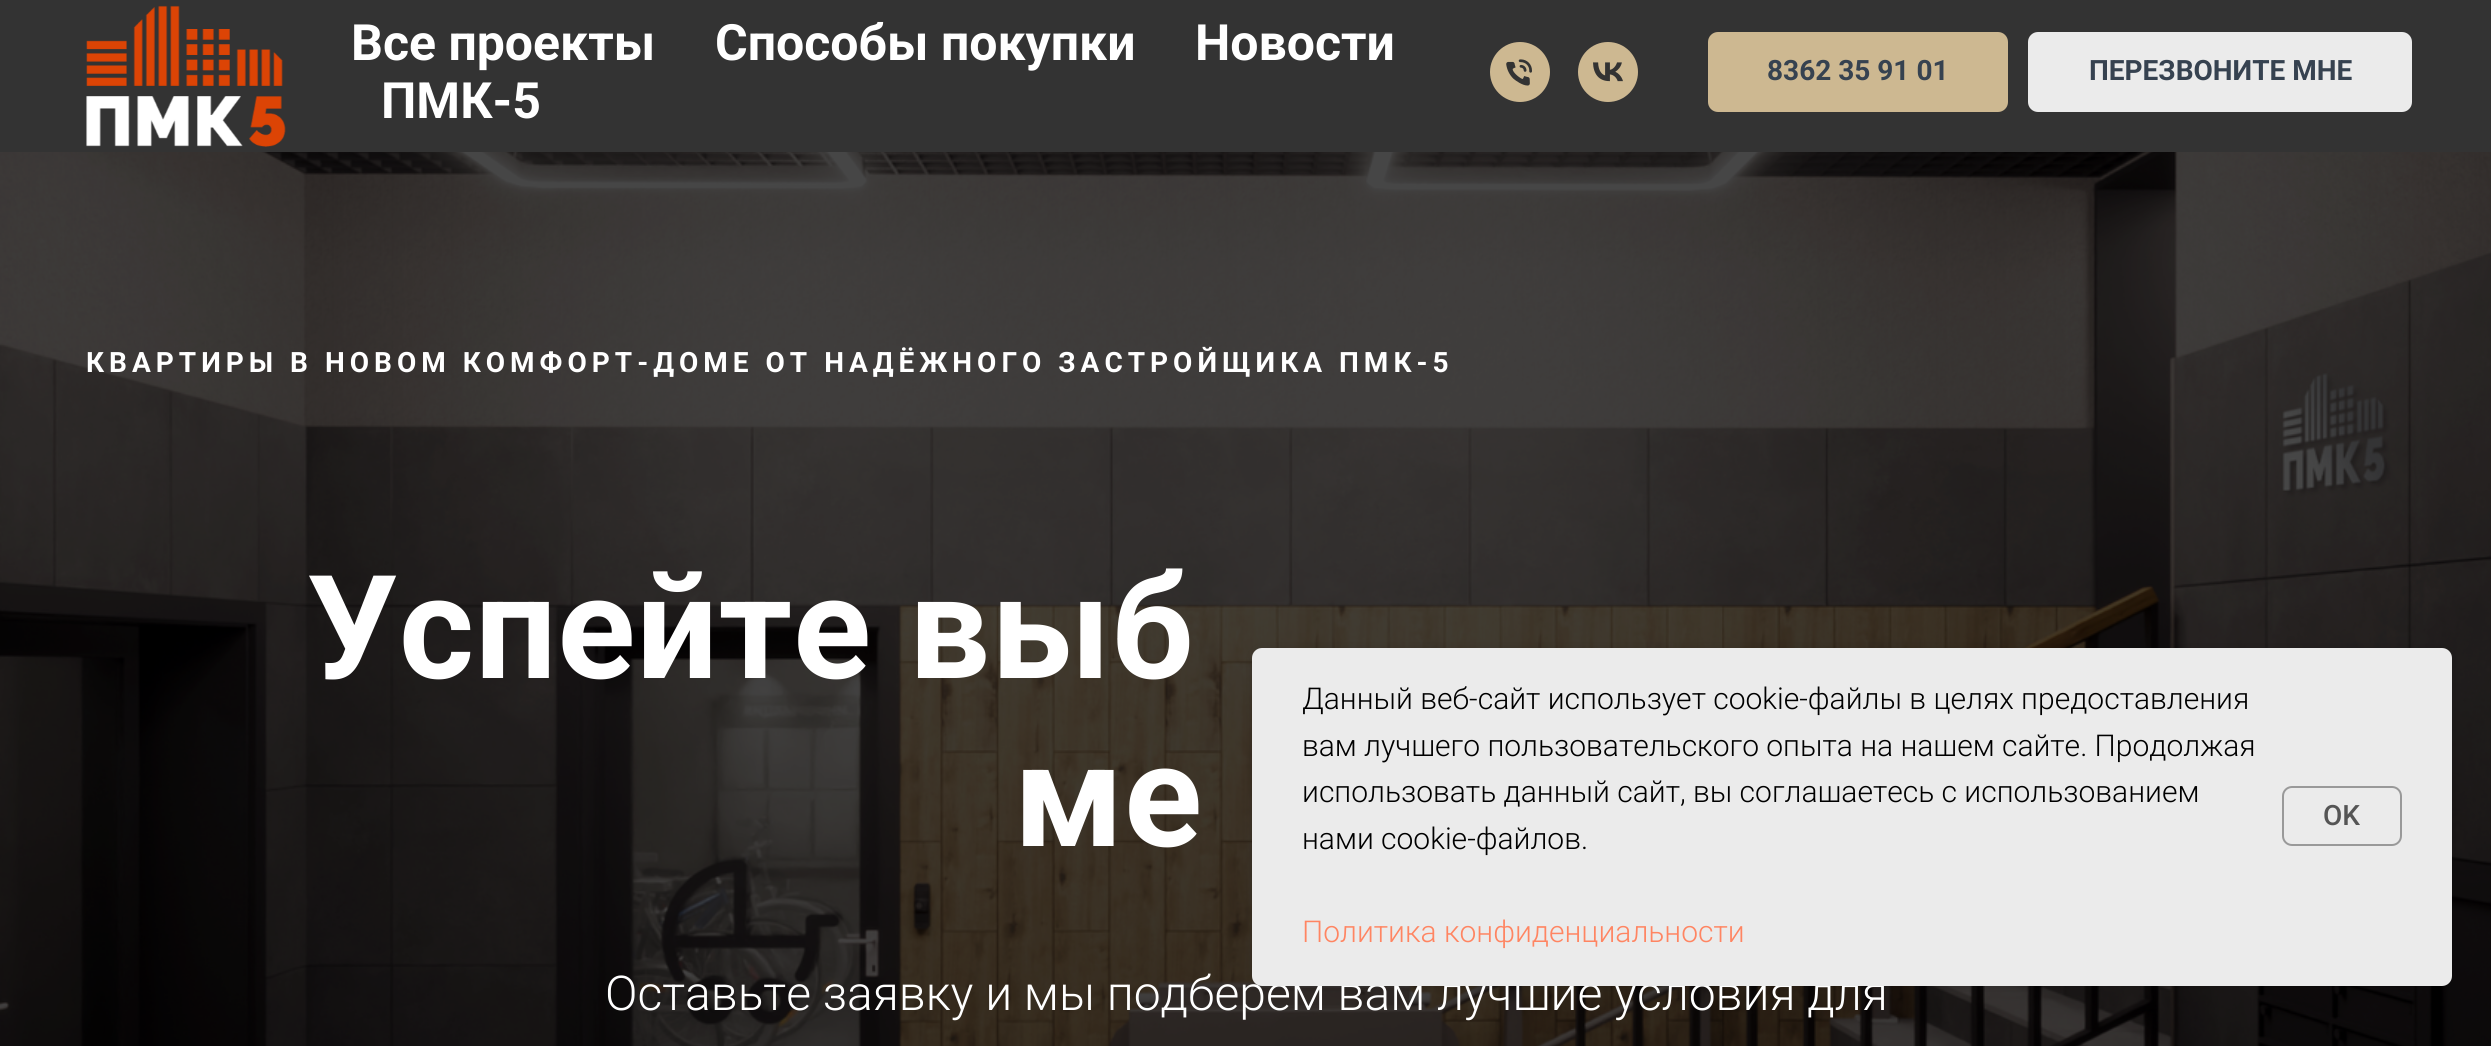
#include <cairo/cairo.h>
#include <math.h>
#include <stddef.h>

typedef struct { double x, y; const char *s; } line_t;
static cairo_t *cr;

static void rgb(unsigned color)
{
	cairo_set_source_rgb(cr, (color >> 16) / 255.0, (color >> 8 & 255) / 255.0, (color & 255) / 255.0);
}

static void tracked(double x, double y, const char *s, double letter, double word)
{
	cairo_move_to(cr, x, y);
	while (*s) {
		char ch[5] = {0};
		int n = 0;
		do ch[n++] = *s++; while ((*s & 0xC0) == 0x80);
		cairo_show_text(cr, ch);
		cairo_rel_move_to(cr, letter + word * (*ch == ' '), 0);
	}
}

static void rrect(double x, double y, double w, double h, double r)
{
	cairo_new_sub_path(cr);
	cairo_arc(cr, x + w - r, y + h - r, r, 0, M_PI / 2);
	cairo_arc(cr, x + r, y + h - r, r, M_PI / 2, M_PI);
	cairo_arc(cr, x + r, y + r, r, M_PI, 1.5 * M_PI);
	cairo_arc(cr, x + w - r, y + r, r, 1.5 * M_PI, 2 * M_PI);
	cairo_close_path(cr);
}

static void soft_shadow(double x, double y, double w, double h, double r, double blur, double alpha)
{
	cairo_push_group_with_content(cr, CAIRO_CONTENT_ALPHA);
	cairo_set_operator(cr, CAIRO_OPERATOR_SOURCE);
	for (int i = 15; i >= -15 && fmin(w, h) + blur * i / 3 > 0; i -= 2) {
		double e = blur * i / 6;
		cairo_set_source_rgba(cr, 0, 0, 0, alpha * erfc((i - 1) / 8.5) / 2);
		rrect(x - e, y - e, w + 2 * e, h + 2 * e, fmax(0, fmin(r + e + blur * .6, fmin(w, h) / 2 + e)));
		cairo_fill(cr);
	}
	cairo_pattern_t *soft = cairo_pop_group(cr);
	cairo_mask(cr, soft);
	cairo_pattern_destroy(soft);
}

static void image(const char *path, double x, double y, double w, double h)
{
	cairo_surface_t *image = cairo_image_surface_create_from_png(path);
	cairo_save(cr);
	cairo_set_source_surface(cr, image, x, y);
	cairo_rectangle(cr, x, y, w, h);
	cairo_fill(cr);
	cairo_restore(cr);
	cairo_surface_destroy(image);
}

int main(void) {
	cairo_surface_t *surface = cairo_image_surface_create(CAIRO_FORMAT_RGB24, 2491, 1046);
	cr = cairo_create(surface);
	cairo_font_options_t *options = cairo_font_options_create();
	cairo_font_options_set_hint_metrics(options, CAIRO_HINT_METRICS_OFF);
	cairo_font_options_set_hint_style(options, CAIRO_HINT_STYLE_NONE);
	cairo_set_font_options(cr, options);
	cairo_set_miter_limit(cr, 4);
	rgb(0xffffff);
	cairo_paint(cr);
	rgb(0x333333);
	cairo_rectangle(cr, 0, 0, 2491, 152);
	cairo_fill(cr);
	image("img/1.png", 86, 5, 200, 142);
	image("img/2.png", 1490, 42, 60, 60);
	image("img/3.png", 1578, 42, 60, 60);
	rgb(0xcdb891);
	rrect(1708, 32, 300, 80, 10);
	cairo_fill(cr);
	rgb(0xebebeb);
	rrect(2028, 32, 384, 80, 10);
	cairo_fill(cr);
	image("img/4.png", 0, 152, 2491, 894);
	rgb(0x000000);
	soft_shadow(1252, 648, 1200, 338, 10, 5, 0.1);
	cairo_select_font_face(cr, "Roboto", CAIRO_FONT_SLANT_NORMAL, CAIRO_FONT_WEIGHT_BOLD);
	cairo_set_font_size(cr, 50);
	rgb(0xffffff);
	{
		static const line_t items[] = {
			{351, 60, "Все проекты"},
			{715, 60, "Способы покупки"},
			{1195, 60, "Новости"},
			{381, 118, "ПМК-5"},
		};
		for (size_t i = 0; i < sizeof items / sizeof *items; i++) {
			cairo_move_to(cr, items[i].x, items[i].y);
			cairo_show_text(cr, items[i].s);
		}
	}
	cairo_set_font_size(cr, 28);
	rgb(0x364250);
	cairo_move_to(cr, 1767, 80);
	cairo_show_text(cr, "8362 35 91 01");
	cairo_move_to(cr, 2089, 80);
	cairo_show_text(cr, "ПЕРЕЗВОНИТЕ МНЕ");
	rgb(0xffffff);
	tracked(86, 372, "КВАРТИРЫ В НОВОМ КОМФОРТ-ДОМЕ ОТ НАДЁЖНОГО ЗАСТРОЙЩИКА ПМК-5", 5, 0);
	cairo_set_font_size(cr, 144);
	tracked(307, 678, "Успейте выб", 1, 0);
	tracked(1014, 846, "ме", 1, 0);
	cairo_select_font_face(cr, "Roboto Light", CAIRO_FONT_SLANT_NORMAL, CAIRO_FONT_WEIGHT_NORMAL);
	cairo_set_font_size(cr, 48);
	cairo_move_to(cr, 605, 1010);
	cairo_show_text(cr, "Оставьте заявку и мы подберем вам лучшие условия для");
	rgb(0xebebeb);
	rrect(1252, 648, 1200, 338, 10);
	cairo_fill(cr);
	cairo_set_font_size(cr, 30);
	rgb(0x000000);
	{
		static const line_t items[] = {
			{1302, 709, "Данный веб-сайт использует cookie-файлы в целях предоставления"},
			{1302, 756, "вам лучшего пользовательского опыта на нашем сайте. Продолжая"},
			{1302, 802, "использовать данный сайт, вы соглашаетесь с использованием"},
			{1302, 849, "нами cookie-файлов."},
		};
		for (size_t i = 0; i < sizeof items / sizeof *items; i++) {
			cairo_move_to(cr, items[i].x, items[i].y);
			cairo_show_text(cr, items[i].s);
		}
	}
	rgb(0xff8562);
	cairo_move_to(cr, 1302, 942);
	cairo_show_text(cr, "Политика конфиденциальности");
	rrect(2283, 787, 118, 58, 9);
	rgb(0x999999);
	cairo_stroke(cr);
	cairo_select_font_face(cr, "Roboto Medium", CAIRO_FONT_SLANT_NORMAL, CAIRO_FONT_WEIGHT_NORMAL);
	cairo_set_font_size(cr, 28);
	rgb(0x555555);
	cairo_move_to(cr, 2323, 825);
	cairo_show_text(cr, "OK");
	cairo_surface_write_to_png(surface, "page.png");
	cairo_font_options_destroy(options);
	cairo_destroy(cr);
	cairo_surface_destroy(surface);
	return 0;
}
